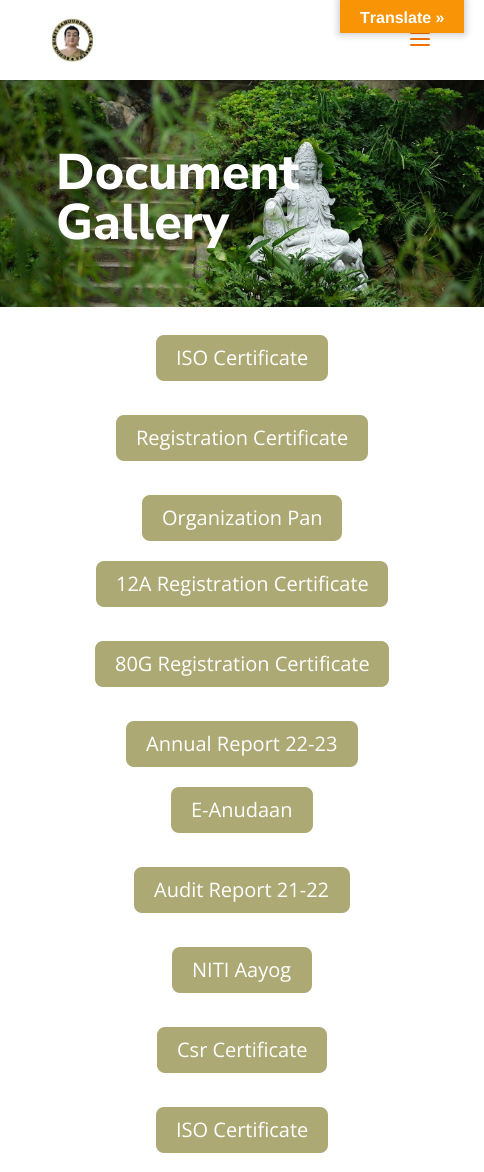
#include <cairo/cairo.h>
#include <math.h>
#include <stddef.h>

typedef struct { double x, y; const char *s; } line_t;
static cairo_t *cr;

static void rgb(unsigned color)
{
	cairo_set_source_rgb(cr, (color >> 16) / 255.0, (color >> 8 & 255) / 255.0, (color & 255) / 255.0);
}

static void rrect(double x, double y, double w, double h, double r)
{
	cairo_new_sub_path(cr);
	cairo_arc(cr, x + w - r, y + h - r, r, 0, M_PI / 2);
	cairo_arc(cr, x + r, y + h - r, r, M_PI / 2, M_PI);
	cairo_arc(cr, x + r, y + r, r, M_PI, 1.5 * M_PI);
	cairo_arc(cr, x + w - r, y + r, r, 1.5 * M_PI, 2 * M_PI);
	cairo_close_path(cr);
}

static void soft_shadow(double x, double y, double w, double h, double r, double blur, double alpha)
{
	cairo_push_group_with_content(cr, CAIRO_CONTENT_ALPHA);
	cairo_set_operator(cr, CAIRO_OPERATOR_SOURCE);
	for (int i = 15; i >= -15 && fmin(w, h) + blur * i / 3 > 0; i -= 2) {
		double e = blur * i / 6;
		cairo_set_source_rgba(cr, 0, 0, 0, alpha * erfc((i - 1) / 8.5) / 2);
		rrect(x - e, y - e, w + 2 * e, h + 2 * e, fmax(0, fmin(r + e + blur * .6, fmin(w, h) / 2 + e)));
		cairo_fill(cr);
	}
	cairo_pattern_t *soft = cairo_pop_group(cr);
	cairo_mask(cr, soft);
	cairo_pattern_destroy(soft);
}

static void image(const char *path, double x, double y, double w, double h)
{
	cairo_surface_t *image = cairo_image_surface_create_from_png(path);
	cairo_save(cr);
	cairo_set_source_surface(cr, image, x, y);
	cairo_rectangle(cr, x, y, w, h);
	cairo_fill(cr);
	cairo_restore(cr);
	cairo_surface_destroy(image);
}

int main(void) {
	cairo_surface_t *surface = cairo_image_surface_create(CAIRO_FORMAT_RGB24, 484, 1172);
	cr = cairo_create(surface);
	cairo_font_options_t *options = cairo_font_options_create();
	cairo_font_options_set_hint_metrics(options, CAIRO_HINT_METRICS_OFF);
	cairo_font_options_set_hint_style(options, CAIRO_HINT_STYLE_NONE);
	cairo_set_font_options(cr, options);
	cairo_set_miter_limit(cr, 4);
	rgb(0xffffff);
	cairo_paint(cr);
	image("img/2.png", 410, 33, 20, 13);
	rgb(0x000000);
	soft_shadow(340, 0, 124, 33, 0, 4.5, 0.3);
	rgb(0xf89406);
	cairo_rectangle(cr, 340, 0, 124, 33);
	cairo_fill(cr);
	image("img/3.png", 0, 80, 484, 227);
	cairo_set_source_rgba(cr, 0, 0, 0, 0.1);
	cairo_rectangle(cr, 0, 80, 423, 1);
	cairo_fill(cr);
	image("img/1.png", 52, 18, 41, 44);
	rgb(0xaca974);
	rrect(155, 334, 174, 48, 9);
	cairo_fill_preserve(cr);
	rgb(0xffffff);
	cairo_stroke(cr);
	rgb(0xaca974);
	rrect(115, 414, 254, 48, 9);
	cairo_fill_preserve(cr);
	rgb(0xffffff);
	cairo_stroke(cr);
	rgb(0xaca974);
	rrect(141, 494, 202, 48, 9);
	cairo_fill_preserve(cr);
	rgb(0xffffff);
	cairo_stroke(cr);
	rgb(0xaca974);
	rrect(95, 560, 294, 48, 9);
	cairo_fill_preserve(cr);
	rgb(0xffffff);
	cairo_stroke(cr);
	rgb(0xaca974);
	rrect(94, 640, 296, 48, 9);
	cairo_fill_preserve(cr);
	rgb(0xffffff);
	cairo_stroke(cr);
	rgb(0xaca974);
	rrect(125, 720, 234, 48, 9);
	cairo_fill_preserve(cr);
	rgb(0xffffff);
	cairo_stroke(cr);
	rgb(0xaca974);
	rrect(170, 786, 144, 48, 9);
	cairo_fill_preserve(cr);
	rgb(0xffffff);
	cairo_stroke(cr);
	rgb(0xaca974);
	rrect(133, 866, 218, 48, 9);
	cairo_fill_preserve(cr);
	rgb(0xffffff);
	cairo_stroke(cr);
	rgb(0xaca974);
	rrect(171, 946, 142, 48, 9);
	cairo_fill_preserve(cr);
	rgb(0xffffff);
	cairo_stroke(cr);
	rgb(0xaca974);
	rrect(156, 1026, 172, 48, 9);
	cairo_fill_preserve(cr);
	rgb(0xffffff);
	cairo_stroke(cr);
	rgb(0xaca974);
	rrect(155, 1106, 174, 48, 9);
	cairo_fill_preserve(cr);
	rgb(0xffffff);
	cairo_stroke(cr);
	cairo_select_font_face(cr, "Liberation Sans", CAIRO_FONT_SLANT_NORMAL, CAIRO_FONT_WEIGHT_BOLD);
	cairo_set_font_size(cr, 16);
	cairo_move_to(cr, 360, 23);
	cairo_show_text(cr, "Translate »");
	cairo_select_font_face(cr, "Nunito Sans ExtraBold", CAIRO_FONT_SLANT_NORMAL, CAIRO_FONT_WEIGHT_NORMAL);
	cairo_set_font_size(cr, 50);
	cairo_move_to(cr, 56, 189);
	cairo_show_text(cr, "Document");
	cairo_move_to(cr, 56, 239);
	cairo_show_text(cr, "Gallery");
	cairo_select_font_face(cr, "Open Sans", CAIRO_FONT_SLANT_NORMAL, CAIRO_FONT_WEIGHT_NORMAL);
	cairo_set_font_size(cr, 20);
	{
		static const line_t items[] = {
			{176, 365, "ISO Certificate"},
			{136, 445, "Registration Certificate"},
			{162, 525, "Organization Pan"},
			{116, 591, "12A Registration Certificate"},
			{115, 671, "80G Registration Certificate"},
			{146, 751, "Annual Report 22-23"},
			{191, 817, "E-Anudaan"},
			{154, 897, "Audit Report 21-22"},
			{192, 977, "NITI Aayog"},
			{177, 1057, "Csr Certificate"},
			{176, 1137, "ISO Certificate"},
		};
		for (size_t i = 0; i < sizeof items / sizeof *items; i++) {
			cairo_move_to(cr, items[i].x, items[i].y);
			cairo_show_text(cr, items[i].s);
		}
	}
	cairo_surface_write_to_png(surface, "page.png");
	cairo_font_options_destroy(options);
	cairo_destroy(cr);
	cairo_surface_destroy(surface);
	return 0;
}
